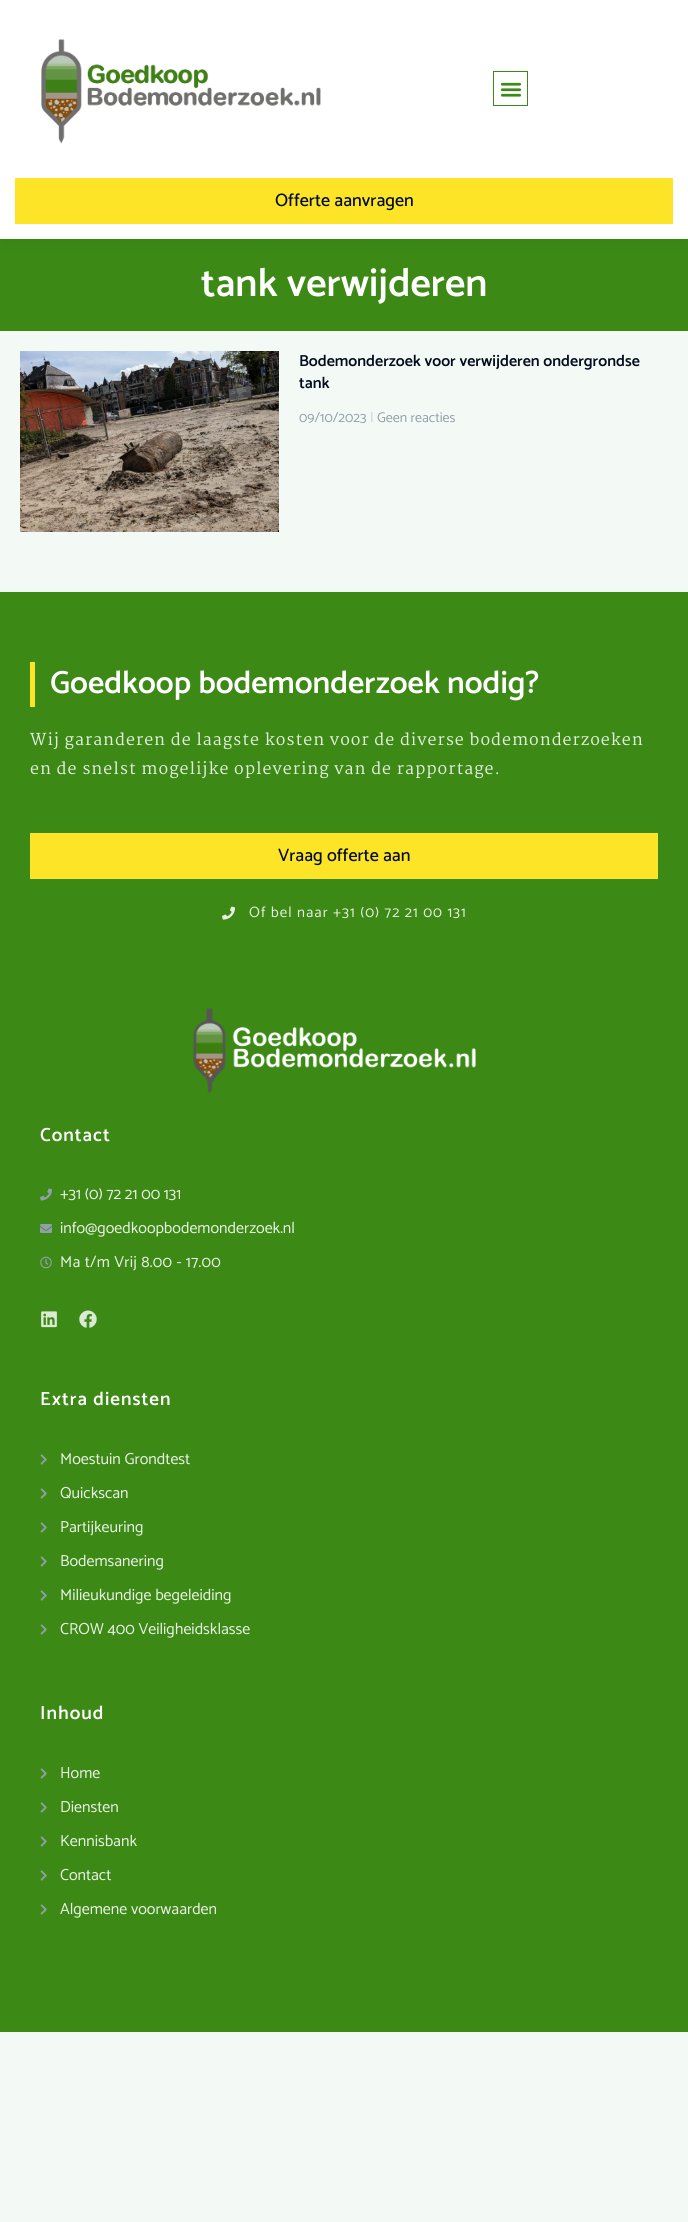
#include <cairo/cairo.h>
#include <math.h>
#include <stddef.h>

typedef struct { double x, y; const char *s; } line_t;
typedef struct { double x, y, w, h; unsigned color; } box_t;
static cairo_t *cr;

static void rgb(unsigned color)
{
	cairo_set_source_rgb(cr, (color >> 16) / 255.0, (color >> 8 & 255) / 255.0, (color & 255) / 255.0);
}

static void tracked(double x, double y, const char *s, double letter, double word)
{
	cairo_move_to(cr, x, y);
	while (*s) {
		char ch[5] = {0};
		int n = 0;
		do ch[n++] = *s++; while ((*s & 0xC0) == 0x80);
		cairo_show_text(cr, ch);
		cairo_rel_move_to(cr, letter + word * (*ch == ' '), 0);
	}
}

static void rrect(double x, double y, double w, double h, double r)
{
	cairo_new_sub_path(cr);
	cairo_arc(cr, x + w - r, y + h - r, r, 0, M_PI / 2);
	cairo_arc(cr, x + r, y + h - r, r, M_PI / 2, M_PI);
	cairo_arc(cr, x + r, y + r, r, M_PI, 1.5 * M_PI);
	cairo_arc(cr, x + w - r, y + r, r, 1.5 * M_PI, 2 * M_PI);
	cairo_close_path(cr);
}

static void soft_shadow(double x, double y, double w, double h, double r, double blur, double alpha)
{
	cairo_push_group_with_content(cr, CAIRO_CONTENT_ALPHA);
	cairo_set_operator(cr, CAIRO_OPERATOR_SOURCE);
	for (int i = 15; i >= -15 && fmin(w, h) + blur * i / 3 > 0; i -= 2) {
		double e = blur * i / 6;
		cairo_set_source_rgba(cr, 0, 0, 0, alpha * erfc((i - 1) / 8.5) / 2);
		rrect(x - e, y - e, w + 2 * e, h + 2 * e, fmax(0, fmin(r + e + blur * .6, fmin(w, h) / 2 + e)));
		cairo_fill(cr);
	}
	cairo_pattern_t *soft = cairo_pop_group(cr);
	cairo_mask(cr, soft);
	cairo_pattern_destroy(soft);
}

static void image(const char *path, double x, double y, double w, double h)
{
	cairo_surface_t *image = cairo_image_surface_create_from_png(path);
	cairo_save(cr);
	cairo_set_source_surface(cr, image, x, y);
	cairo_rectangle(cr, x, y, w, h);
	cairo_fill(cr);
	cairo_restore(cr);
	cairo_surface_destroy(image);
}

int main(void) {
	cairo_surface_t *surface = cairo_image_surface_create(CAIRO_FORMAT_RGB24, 688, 2222);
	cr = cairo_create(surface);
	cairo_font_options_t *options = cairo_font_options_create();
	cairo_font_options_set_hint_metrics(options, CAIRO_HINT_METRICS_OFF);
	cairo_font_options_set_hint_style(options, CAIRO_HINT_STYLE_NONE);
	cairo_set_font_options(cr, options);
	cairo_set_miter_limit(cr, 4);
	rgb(0xf3f9f4);
	cairo_paint(cr);
	rgb(0x3c8a15);
	cairo_rectangle(cr, 0, 239, 688, 92);
	cairo_fill(cr);
	rgb(0x000000);
	soft_shadow(0, 3, 688, 239, 0, 10, 0.06);
	rgb(0xffffff);
	cairo_rectangle(cr, 0, 0, 688, 239);
	cairo_fill(cr);
	image("img/1.png", 41, 39, 280, 105);
	cairo_rectangle(cr, 493.5, 71.5, 34, 34);
	rgb(0x3c8a15);
	cairo_set_line_width(cr, 1);
	cairo_stroke(cr);
	image("img/2.png", 500, 82, 22, 15);
	rgb(0xfde427);
	cairo_rectangle(cr, 15, 178, 658, 46);
	cairo_fill(cr);
	image("img/3.png", 20, 351, 259, 181);
	{
		static const box_t items[] = {
			{0, 592, 688, 1440, 0x3c8a15},
			{30, 662, 5, 45, 0xfde427},
			{30, 833, 628, 46, 0xfde427},
		};
		for (size_t i = 0; i < sizeof items / sizeof *items; i++) {
			rgb(items[i].color);
			cairo_rectangle(cr, items[i].x, items[i].y, items[i].w, items[i].h);
			cairo_fill(cr);
		}
	}
	image("img/4.png", 222, 906, 13, 14);
	image("img/5.png", 193, 1008, 283, 86);
	image("img/6.png", 40, 1188, 12, 13);
	image("img/7.png", 40, 1224, 12, 9);
	image("img/8.png", 40, 1256, 12, 13);
	image("img/9.png", 41, 1311, 16, 17);
	image("img/10.png", 79, 1310, 18, 18);
	image("img/11.png", 40, 1454, 7, 11);
	image("img/11.png", 40, 1488, 7, 11);
	image("img/11.png", 40, 1522, 7, 11);
	image("img/11.png", 40, 1556, 7, 11);
	image("img/11.png", 40, 1590, 7, 11);
	image("img/11.png", 40, 1624, 7, 11);
	image("img/11.png", 40, 1768, 7, 11);
	image("img/11.png", 40, 1802, 7, 11);
	image("img/11.png", 40, 1836, 7, 11);
	image("img/11.png", 40, 1870, 7, 11);
	image("img/11.png", 40, 1904, 7, 11);
	cairo_select_font_face(cr, "Catamaran Medium", CAIRO_FONT_SLANT_NORMAL, CAIRO_FONT_WEIGHT_NORMAL);
	cairo_set_font_size(cr, 18);
	rgb(0x020c1e);
	cairo_move_to(cr, 275, 206);
	cairo_show_text(cr, "Offerte aanvragen");
	cairo_select_font_face(cr, "Catamaran SemiBold", CAIRO_FONT_SLANT_NORMAL, CAIRO_FONT_WEIGHT_NORMAL);
	cairo_set_font_size(cr, 40);
	rgb(0xffffff);
	cairo_move_to(cr, 201, 296);
	cairo_show_text(cr, "tank verwijderen");
	cairo_set_font_size(cr, 16);
	rgb(0x020c1e);
	cairo_move_to(cr, 299, 366);
	cairo_show_text(cr, "Bodemonderzoek voor verwijderen ondergrondse");
	cairo_move_to(cr, 299, 388);
	cairo_show_text(cr, "tank");
	cairo_select_font_face(cr, "Catamaran", CAIRO_FONT_SLANT_NORMAL, CAIRO_FONT_WEIGHT_NORMAL);
	cairo_set_font_size(cr, 14);
	rgb(0x939eab);
	cairo_move_to(cr, 299, 422);
	cairo_show_text(cr, "09/10/2023");
	rgb(0xc7d1de);
	cairo_move_to(cr, 370, 422);
	cairo_show_text(cr, "|");
	rgb(0x939eab);
	cairo_move_to(cr, 377, 422);
	cairo_show_text(cr, "Geen reacties");
	cairo_select_font_face(cr, "Catamaran SemiBold", CAIRO_FONT_SLANT_NORMAL, CAIRO_FONT_WEIGHT_NORMAL);
	cairo_set_font_size(cr, 32);
	rgb(0xffffff);
	cairo_move_to(cr, 50, 693);
	cairo_show_text(cr, "Goedkoop bodemonderzoek nodig?");
	cairo_select_font_face(cr, "Martel", CAIRO_FONT_SLANT_NORMAL, CAIRO_FONT_WEIGHT_NORMAL);
	cairo_set_font_size(cr, 16);
	rgb(0xe6f0e1);
	tracked(30, 745, "Wij garanderen de laagste kosten voor de diverse bodemonderzoeken", 1, 0);
	tracked(30, 774, "en de snelst mogelijke oplevering van de rapportage.", 1, 0);
	cairo_select_font_face(cr, "Catamaran Medium", CAIRO_FONT_SLANT_NORMAL, CAIRO_FONT_WEIGHT_NORMAL);
	cairo_set_font_size(cr, 18);
	rgb(0x020c1e);
	cairo_move_to(cr, 278, 861);
	cairo_show_text(cr, "Vraag offerte aan");
	cairo_select_font_face(cr, "Catamaran", CAIRO_FONT_SLANT_NORMAL, CAIRO_FONT_WEIGHT_NORMAL);
	cairo_set_font_size(cr, 15);
	rgb(0xe6f0e1);
	tracked(249, 917, "Of bel naar +31 (0) 72 21 00 131", 1, 0);
	cairo_select_font_face(cr, "Catamaran SemiBold", CAIRO_FONT_SLANT_NORMAL, CAIRO_FONT_WEIGHT_NORMAL);
	cairo_set_font_size(cr, 19);
	rgb(0xffffff);
	tracked(40, 1141, "Contact", 1, 0);
	cairo_select_font_face(cr, "Catamaran", CAIRO_FONT_SLANT_NORMAL, CAIRO_FONT_WEIGHT_NORMAL);
	cairo_set_font_size(cr, 16);
	rgb(0xecf3e8);
	cairo_move_to(cr, 60, 1199);
	cairo_show_text(cr, "+31 (0) 72 21 00 131");
	cairo_move_to(cr, 60, 1233);
	cairo_show_text(cr, "info@goedkoopbodemonderzoek.nl");
	tracked(60, 1267, "Ma t/m Vrij 8.00 - 17.00", 0.3, 0);
	cairo_select_font_face(cr, "Catamaran SemiBold", CAIRO_FONT_SLANT_NORMAL, CAIRO_FONT_WEIGHT_NORMAL);
	cairo_set_font_size(cr, 19);
	rgb(0xffffff);
	tracked(40, 1405, "Extra diensten", 1, 0);
	cairo_select_font_face(cr, "Catamaran", CAIRO_FONT_SLANT_NORMAL, CAIRO_FONT_WEIGHT_NORMAL);
	cairo_set_font_size(cr, 16);
	rgb(0xecf3e8);
	{
		static const line_t items[] = {
			{60, 1464, "Moestuin Grondtest"},
			{60, 1498, "Quickscan"},
			{60, 1532, "Partijkeuring"},
			{60, 1566, "Bodemsanering"},
			{60, 1600, "Milieukundige begeleiding"},
			{60, 1634, "CROW 400 Veiligheidsklasse"},
		};
		for (size_t i = 0; i < sizeof items / sizeof *items; i++) {
			cairo_move_to(cr, items[i].x, items[i].y);
			cairo_show_text(cr, items[i].s);
		}
	}
	cairo_select_font_face(cr, "Catamaran SemiBold", CAIRO_FONT_SLANT_NORMAL, CAIRO_FONT_WEIGHT_NORMAL);
	cairo_set_font_size(cr, 19);
	rgb(0xffffff);
	tracked(40, 1719, "Inhoud", 1, 0);
	cairo_select_font_face(cr, "Catamaran", CAIRO_FONT_SLANT_NORMAL, CAIRO_FONT_WEIGHT_NORMAL);
	cairo_set_font_size(cr, 16);
	rgb(0xecf3e8);
	{
		static const line_t items[] = {
			{60, 1778, "Home"},
			{60, 1812, "Diensten"},
			{60, 1846, "Kennisbank"},
			{60, 1880, "Contact"},
			{60, 1914, "Algemene voorwaarden"},
		};
		for (size_t i = 0; i < sizeof items / sizeof *items; i++) {
			cairo_move_to(cr, items[i].x, items[i].y);
			cairo_show_text(cr, items[i].s);
		}
	}
	cairo_surface_write_to_png(surface, "page.png");
	cairo_font_options_destroy(options);
	cairo_destroy(cr);
	cairo_surface_destroy(surface);
	return 0;
}
